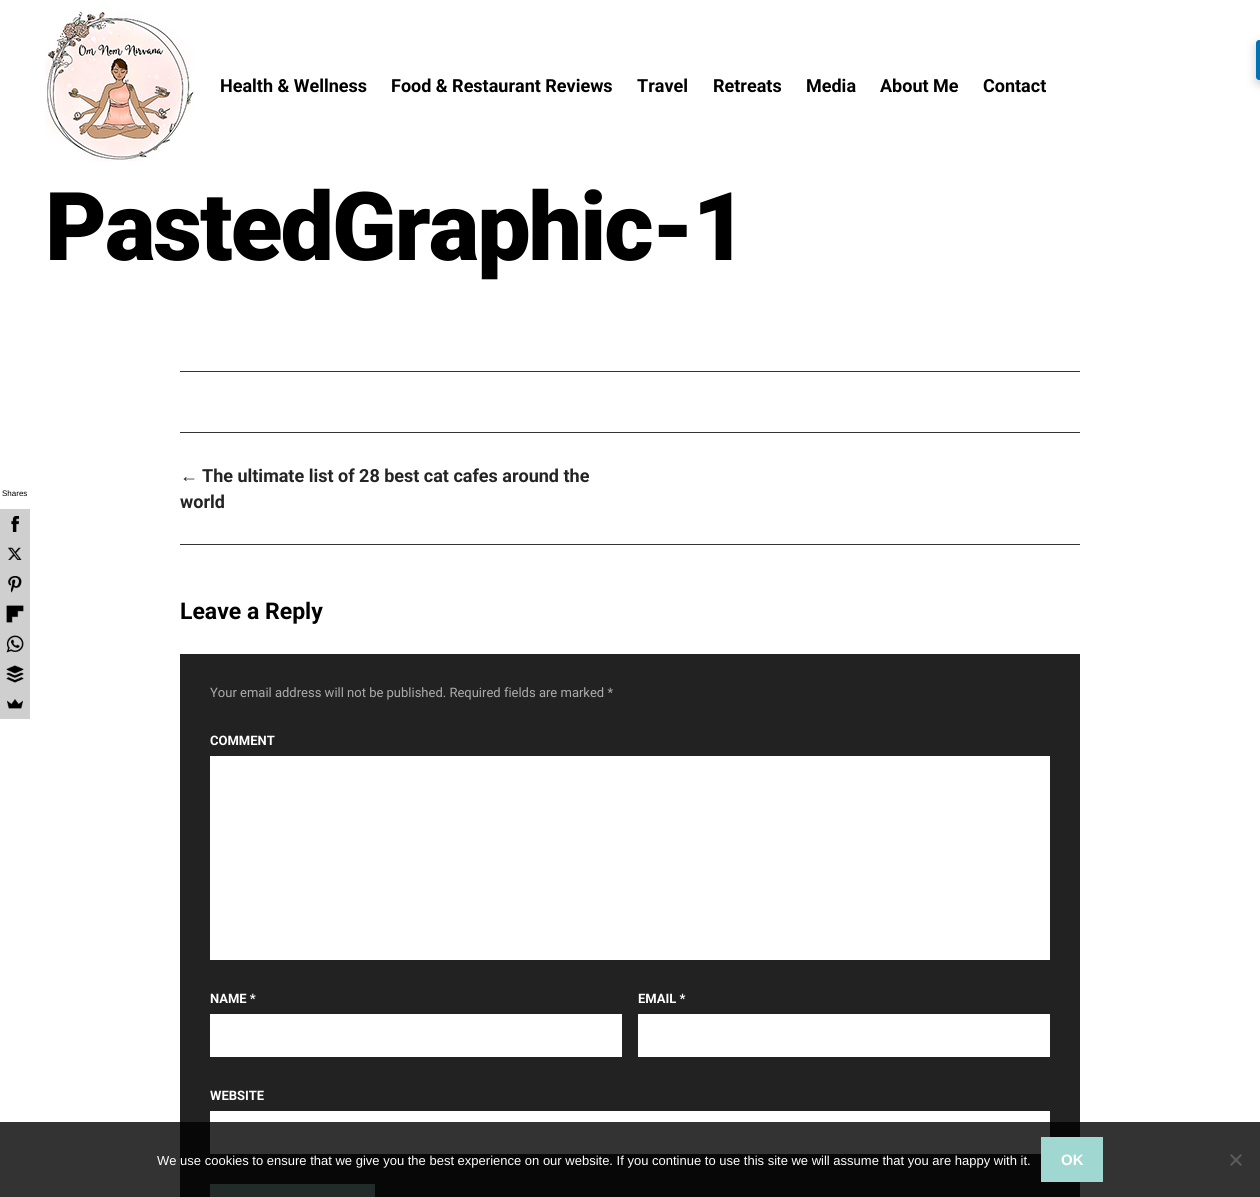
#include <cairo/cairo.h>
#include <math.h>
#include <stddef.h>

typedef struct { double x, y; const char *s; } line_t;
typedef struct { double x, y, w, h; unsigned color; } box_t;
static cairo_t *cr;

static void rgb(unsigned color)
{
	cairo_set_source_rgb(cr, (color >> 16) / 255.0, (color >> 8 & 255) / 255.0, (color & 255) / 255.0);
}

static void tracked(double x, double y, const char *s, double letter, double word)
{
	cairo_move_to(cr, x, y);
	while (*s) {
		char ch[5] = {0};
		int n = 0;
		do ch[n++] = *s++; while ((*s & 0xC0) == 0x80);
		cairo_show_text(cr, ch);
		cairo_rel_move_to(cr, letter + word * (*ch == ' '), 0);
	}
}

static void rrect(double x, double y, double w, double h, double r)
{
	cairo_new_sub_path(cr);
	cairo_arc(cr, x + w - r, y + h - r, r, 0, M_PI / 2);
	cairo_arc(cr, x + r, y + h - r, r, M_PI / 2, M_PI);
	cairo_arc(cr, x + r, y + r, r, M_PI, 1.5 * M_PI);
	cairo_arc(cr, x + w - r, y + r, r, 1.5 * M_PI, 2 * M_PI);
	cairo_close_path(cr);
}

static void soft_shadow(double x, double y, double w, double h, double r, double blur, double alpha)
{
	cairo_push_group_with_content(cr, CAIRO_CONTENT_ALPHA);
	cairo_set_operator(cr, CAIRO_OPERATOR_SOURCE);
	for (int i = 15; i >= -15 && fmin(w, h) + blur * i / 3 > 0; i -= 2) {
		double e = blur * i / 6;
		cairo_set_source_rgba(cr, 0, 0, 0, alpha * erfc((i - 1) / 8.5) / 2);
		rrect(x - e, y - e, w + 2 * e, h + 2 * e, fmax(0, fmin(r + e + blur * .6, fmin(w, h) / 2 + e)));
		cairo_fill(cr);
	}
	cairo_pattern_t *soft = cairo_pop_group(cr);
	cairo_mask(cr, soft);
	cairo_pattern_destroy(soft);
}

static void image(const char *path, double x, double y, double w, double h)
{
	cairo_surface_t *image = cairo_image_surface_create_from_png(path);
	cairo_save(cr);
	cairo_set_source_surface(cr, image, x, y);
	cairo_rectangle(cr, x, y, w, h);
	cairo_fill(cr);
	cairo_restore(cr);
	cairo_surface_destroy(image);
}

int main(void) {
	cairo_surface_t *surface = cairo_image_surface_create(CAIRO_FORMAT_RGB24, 1260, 1197);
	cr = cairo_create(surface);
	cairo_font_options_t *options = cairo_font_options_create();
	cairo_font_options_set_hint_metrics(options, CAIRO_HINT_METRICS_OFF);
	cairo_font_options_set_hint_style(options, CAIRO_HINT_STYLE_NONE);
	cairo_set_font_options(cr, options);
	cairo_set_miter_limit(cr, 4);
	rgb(0xffffff);
	cairo_paint(cr);
	rgb(0x333333);
	cairo_rectangle(cr, 0, 1122, 1260, 75);
	cairo_fill(cr);
	image("img/1.png", 45, 11, 150, 150);
	rgb(0x000000);
	soft_shadow(1256, 44, 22, 40, 3, 5, 0.2);
	rgb(0x0073b7);
	cairo_new_path(cr);
	cairo_move_to(cr, 1259, 40);
	cairo_line_to(cr, 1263, 40);
	cairo_line_to(cr, 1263, 80);
	cairo_line_to(cr, 1259, 80);
	cairo_curve_to(cr, 1257.5, 80, 1256, 78.5, 1256, 77);
	cairo_line_to(cr, 1256, 43);
	cairo_curve_to(cr, 1256, 41.5, 1257.5, 40, 1259, 40);
	cairo_close_path(cr);
	cairo_fill(cr);
	rgb(0xcfcfcf);
	cairo_rectangle(cr, 0, 509, 30, 210);
	cairo_fill(cr);
	image("img/2.png", 11, 516, 8, 16);
	image("img/3.png", 7, 547, 15, 13);
	image("img/4.png", 8, 576, 14, 17);
	image("img/5.png", 6, 605, 18, 18);
	image("img/6.png", 6, 635, 18, 18);
	image("img/7.png", 6, 665, 18, 18);
	image("img/8.png", 7, 699, 16, 10);
	{
		static const box_t items[] = {
			{180, 371, 900, 1, 0x313535},
			{180, 432, 900, 1, 0x313535},
			{180, 544, 900, 1, 0x313535},
			{180, 654, 900, 468, 0x222222},
			{180, 1122, 900, 75, 0x070707},
			{210, 756, 840, 204, 0xffffff},
			{210, 1014, 412, 43, 0xffffff},
			{638, 1014, 412, 43, 0xffffff},
			{210, 1111, 840, 11, 0xffffff},
			{210, 1122, 840, 32, 0x333333},
			{210, 1184, 165, 13, 0x202b2a},
			{1041, 1137, 62, 45, 0xa0d8d1},
		};
		for (size_t i = 0; i < sizeof items / sizeof *items; i++) {
			rgb(items[i].color);
			cairo_rectangle(cr, items[i].x, items[i].y, items[i].w, items[i].h);
			cairo_fill(cr);
		}
	}
	rgb(0x5a5a5a);
	cairo_new_path(cr);
	cairo_move_to(cr, 1240.5, 1154);
	cairo_line_to(cr, 1242, 1155.5);
	cairo_line_to(cr, 1231.5, 1166);
	cairo_line_to(cr, 1230, 1164.5);
	cairo_close_path(cr);
	cairo_fill(cr);
	cairo_new_path(cr);
	cairo_move_to(cr, 1230, 1155.5);
	cairo_line_to(cr, 1231.5, 1154);
	cairo_line_to(cr, 1242, 1164.5);
	cairo_line_to(cr, 1240.5, 1166);
	cairo_close_path(cr);
	cairo_fill(cr);
	cairo_select_font_face(cr, "Roboto", CAIRO_FONT_SLANT_NORMAL, CAIRO_FONT_WEIGHT_BOLD);
	cairo_set_font_size(cr, 18);
	rgb(0x000000);
	{
		static const line_t items[] = {
			{220, 92, "Health & Wellness"},
			{391, 92, "Food & Restaurant Reviews"},
			{637, 92, "Travel"},
			{713, 92, "Retreats"},
			{806, 92, "Media"},
			{880, 92, "About Me"},
			{983, 92, "Contact"},
		};
		for (size_t i = 0; i < sizeof items / sizeof *items; i++) {
			cairo_move_to(cr, items[i].x, items[i].y);
			cairo_show_text(cr, items[i].s);
		}
	}
	cairo_select_font_face(cr, "Liberation Sans", CAIRO_FONT_SLANT_NORMAL, CAIRO_FONT_WEIGHT_NORMAL);
	cairo_set_font_size(cr, 8);
	cairo_move_to(cr, 2, 496);
	cairo_show_text(cr, "Shares");
	cairo_select_font_face(cr, "Roboto Black", CAIRO_FONT_SLANT_NORMAL, CAIRO_FONT_WEIGHT_NORMAL);
	cairo_set_font_size(cr, 95);
	tracked(45, 260, "PastedGraphic-1", -2, 0);
	cairo_select_font_face(cr, "Liberation Sans", CAIRO_FONT_SLANT_NORMAL, CAIRO_FONT_WEIGHT_BOLD);
	cairo_set_font_size(cr, 18);
	rgb(0x252323);
	cairo_move_to(cr, 180, 482);
	cairo_show_text(cr, "←");
	cairo_select_font_face(cr, "Roboto", CAIRO_FONT_SLANT_NORMAL, CAIRO_FONT_WEIGHT_BOLD);
	cairo_move_to(cr, 202, 482);
	cairo_show_text(cr, "The ultimate list of 28 best cat cafes around the");
	cairo_move_to(cr, 180, 508);
	cairo_show_text(cr, "world");
	cairo_set_font_size(cr, 23);
	rgb(0x000000);
	cairo_move_to(cr, 180, 619);
	cairo_show_text(cr, "Leave a Reply");
	cairo_select_font_face(cr, "Roboto", CAIRO_FONT_SLANT_NORMAL, CAIRO_FONT_WEIGHT_NORMAL);
	cairo_set_font_size(cr, 13);
	rgb(0xababab);
	cairo_move_to(cr, 210, 697);
	cairo_show_text(cr, "Your email address will not be published. Required fields are marked *");
	cairo_select_font_face(cr, "Roboto", CAIRO_FONT_SLANT_NORMAL, CAIRO_FONT_WEIGHT_BOLD);
	rgb(0xffffff);
	{
		static const line_t items[] = {
			{210, 745, "COMMENT"},
			{210, 1003, "NAME *"},
			{638, 1003, "EMAIL *"},
			{210, 1100, "WEBSITE"},
		};
		for (size_t i = 0; i < sizeof items / sizeof *items; i++) {
			cairo_move_to(cr, items[i].x, items[i].y);
			cairo_show_text(cr, items[i].s);
		}
	}
	cairo_select_font_face(cr, "Liberation Sans", CAIRO_FONT_SLANT_NORMAL, CAIRO_FONT_WEIGHT_NORMAL);
	cairo_move_to(cr, 157, 1165);
	cairo_show_text(cr, "We use cookies to ensure that we give you the best experience on our website. If you continue to use this site we will assume that you are happy with it.");
	cairo_select_font_face(cr, "Liberation Sans", CAIRO_FONT_SLANT_NORMAL, CAIRO_FONT_WEIGHT_BOLD);
	cairo_set_font_size(cr, 15);
	cairo_move_to(cr, 1061, 1165);
	cairo_show_text(cr, "OK");
	cairo_surface_write_to_png(surface, "page.png");
	cairo_font_options_destroy(options);
	cairo_destroy(cr);
	cairo_surface_destroy(surface);
	return 0;
}
